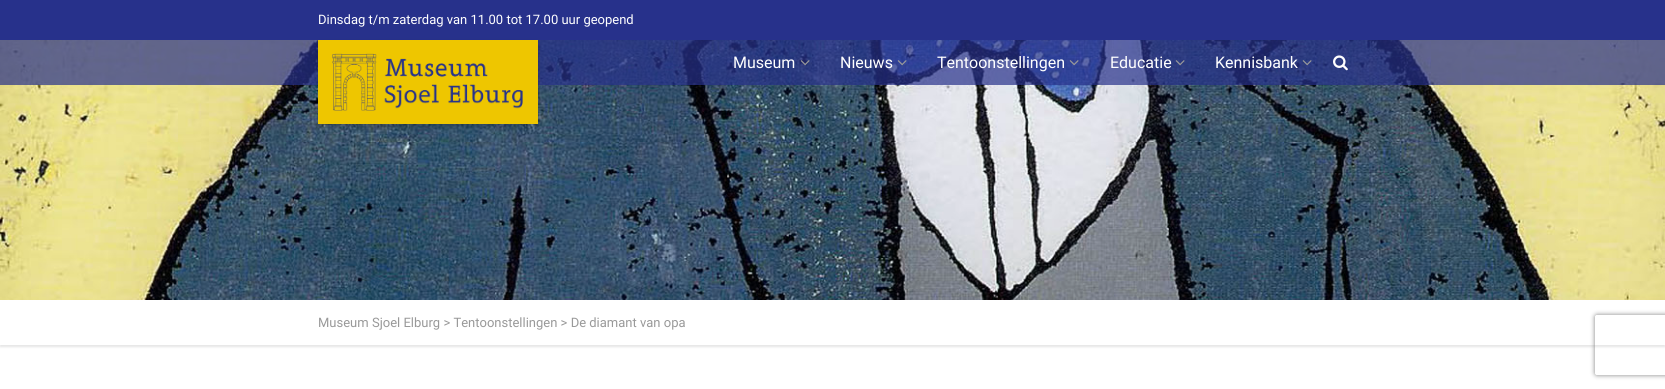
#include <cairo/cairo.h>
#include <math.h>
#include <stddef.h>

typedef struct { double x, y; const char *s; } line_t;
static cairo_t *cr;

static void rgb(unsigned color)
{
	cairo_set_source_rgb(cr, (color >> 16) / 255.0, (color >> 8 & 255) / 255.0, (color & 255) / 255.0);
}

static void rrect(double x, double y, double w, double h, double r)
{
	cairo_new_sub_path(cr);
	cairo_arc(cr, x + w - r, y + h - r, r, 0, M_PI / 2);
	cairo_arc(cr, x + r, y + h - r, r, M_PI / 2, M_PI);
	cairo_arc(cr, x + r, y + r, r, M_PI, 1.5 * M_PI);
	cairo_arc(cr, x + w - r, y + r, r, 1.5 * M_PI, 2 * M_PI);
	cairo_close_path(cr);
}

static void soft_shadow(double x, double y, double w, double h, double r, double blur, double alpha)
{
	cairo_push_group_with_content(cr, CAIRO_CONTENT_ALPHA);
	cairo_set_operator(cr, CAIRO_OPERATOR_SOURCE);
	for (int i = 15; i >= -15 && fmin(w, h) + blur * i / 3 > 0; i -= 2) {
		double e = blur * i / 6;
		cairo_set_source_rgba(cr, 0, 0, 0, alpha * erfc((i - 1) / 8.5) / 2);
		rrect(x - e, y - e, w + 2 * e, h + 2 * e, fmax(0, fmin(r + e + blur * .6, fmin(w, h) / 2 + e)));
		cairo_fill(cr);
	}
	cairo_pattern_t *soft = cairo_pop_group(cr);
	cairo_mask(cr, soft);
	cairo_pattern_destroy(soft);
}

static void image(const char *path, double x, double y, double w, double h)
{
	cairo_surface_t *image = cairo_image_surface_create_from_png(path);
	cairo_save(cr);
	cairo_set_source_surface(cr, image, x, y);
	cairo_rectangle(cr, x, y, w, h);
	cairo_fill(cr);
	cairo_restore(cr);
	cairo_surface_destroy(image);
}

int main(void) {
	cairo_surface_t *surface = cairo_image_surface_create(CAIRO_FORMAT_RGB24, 1665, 389);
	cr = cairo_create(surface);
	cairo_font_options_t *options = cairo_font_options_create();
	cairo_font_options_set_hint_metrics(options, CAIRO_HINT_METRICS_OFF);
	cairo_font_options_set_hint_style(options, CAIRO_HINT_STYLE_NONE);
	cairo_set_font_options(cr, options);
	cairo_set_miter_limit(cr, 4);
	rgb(0xffffff);
	cairo_paint(cr);
	rgb(0x27318b);
	cairo_rectangle(cr, 0, 0, 1665, 40);
	cairo_fill(cr);
	cairo_save(cr);
	cairo_rectangle(cr, 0, 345, 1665, 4);
	cairo_clip(cr);
	rgb(0xe6e6e6);
	soft_shadow(0, 302, 1665, 45, 0, 1, 1);
	cairo_restore(cr);
	image("img/1.png", 0, 40, 1665, 260);
	cairo_set_source_rgba(cr, 0.153, 0.192, 0.545, 0.7);
	cairo_rectangle(cr, 0, 40, 1665, 45);
	cairo_fill(cr);
	rgb(0x000000);
	soft_shadow(318, 43, 220, 84, 2, 2.5, 0.2);
	rgb(0xeec600);
	cairo_rectangle(cr, 318, 40, 220, 84);
	cairo_fill(cr);
	image("img/2.png", 332, 53, 191, 58);
	image("img/3.png", 800, 60, 10, 6);
	image("img/4.png", 897, 60, 10, 6);
	image("img/5.png", 1069, 60, 10, 6);
	image("img/6.png", 1175, 60, 10, 6);
	image("img/7.png", 1302, 60, 10, 6);
	image("img/8.png", 1333, 55, 15, 16);
	cairo_save(cr);
	cairo_set_fill_rule(cr, CAIRO_FILL_RULE_EVEN_ODD);
	cairo_new_path(cr);
	cairo_move_to(cr, 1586, 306);
	cairo_line_to(cr, 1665, 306);
	cairo_line_to(cr, 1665, 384);
	cairo_line_to(cr, 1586, 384);
	cairo_close_path(cr);
	cairo_move_to(cr, 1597, 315);
	cairo_line_to(cr, 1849, 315);
	cairo_curve_to(cr, 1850, 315, 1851, 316, 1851, 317);
	cairo_line_to(cr, 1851, 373);
	cairo_curve_to(cr, 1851, 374, 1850, 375, 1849, 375);
	cairo_line_to(cr, 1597, 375);
	cairo_curve_to(cr, 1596, 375, 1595, 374, 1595, 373);
	cairo_line_to(cr, 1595, 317);
	cairo_curve_to(cr, 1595, 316, 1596, 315, 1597, 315);
	cairo_close_path(cr);
	cairo_clip(cr);
	rgb(0x808080);
	soft_shadow(1595, 315, 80, 60, 2, 2.5, 1);
	cairo_restore(cr);
	cairo_select_font_face(cr, "Roboto", CAIRO_FONT_SLANT_NORMAL, CAIRO_FONT_WEIGHT_NORMAL);
	cairo_set_font_size(cr, 13);
	rgb(0xffffff);
	cairo_move_to(cr, 318, 24);
	cairo_show_text(cr, "Dinsdag t/m zaterdag van 11.00 tot 17.00 uur geopend");
	cairo_set_font_size(cr, 16);
	{
		static const line_t items[] = {
			{733, 68, "Museum"},
			{840, 68, "Nieuws"},
			{937, 68, "Tentoonstellingen"},
			{1110, 68, "Educatie"},
			{1215, 68, "Kennisbank"},
		};
		for (size_t i = 0; i < sizeof items / sizeof *items; i++) {
			cairo_move_to(cr, items[i].x, items[i].y);
			cairo_show_text(cr, items[i].s);
		}
	}
	cairo_set_font_size(cr, 13);
	rgb(0x999999);
	cairo_move_to(cr, 318, 327);
	cairo_show_text(cr, "Museum Sjoel Elburg > Tentoonstellingen > De diamant van opa");
	cairo_surface_write_to_png(surface, "page.png");
	cairo_font_options_destroy(options);
	cairo_destroy(cr);
	cairo_surface_destroy(surface);
	return 0;
}
